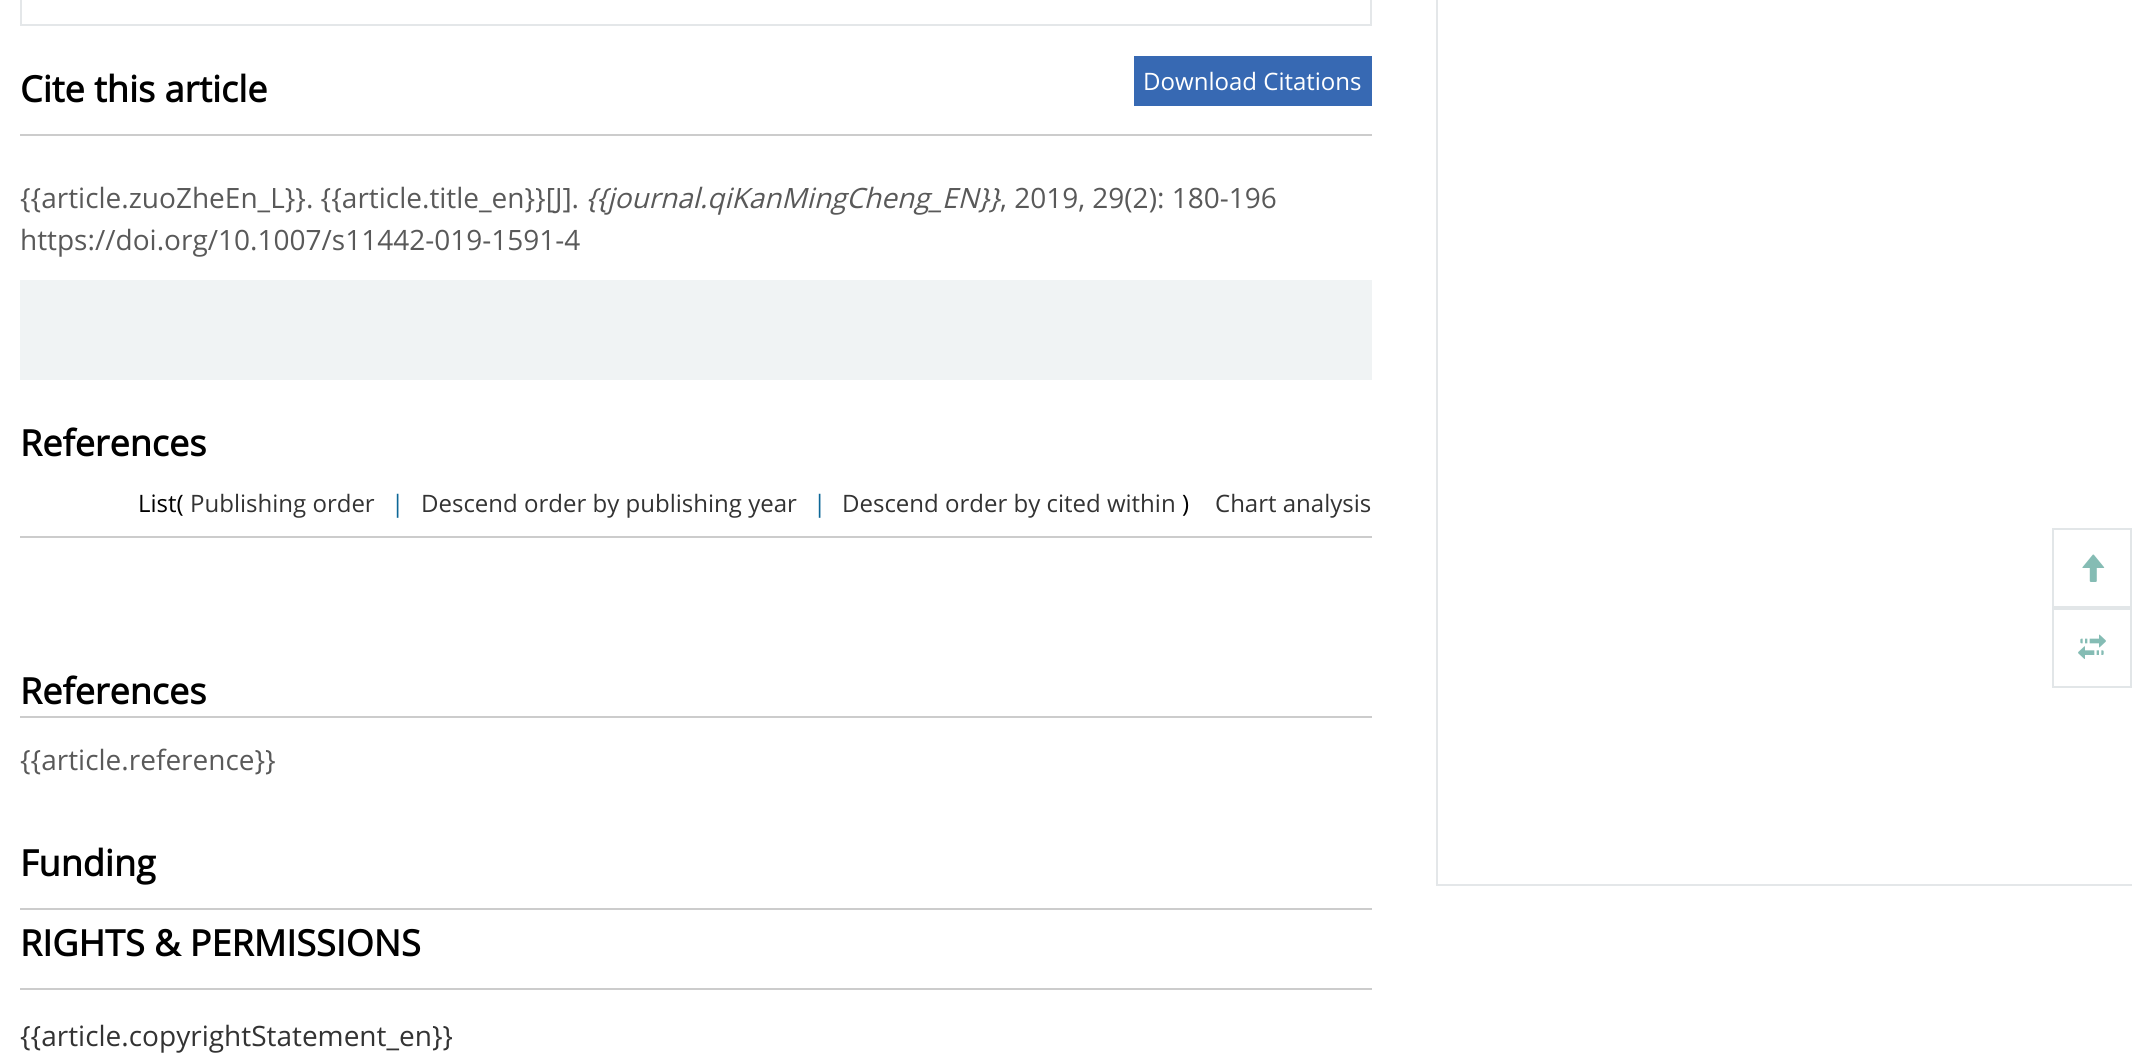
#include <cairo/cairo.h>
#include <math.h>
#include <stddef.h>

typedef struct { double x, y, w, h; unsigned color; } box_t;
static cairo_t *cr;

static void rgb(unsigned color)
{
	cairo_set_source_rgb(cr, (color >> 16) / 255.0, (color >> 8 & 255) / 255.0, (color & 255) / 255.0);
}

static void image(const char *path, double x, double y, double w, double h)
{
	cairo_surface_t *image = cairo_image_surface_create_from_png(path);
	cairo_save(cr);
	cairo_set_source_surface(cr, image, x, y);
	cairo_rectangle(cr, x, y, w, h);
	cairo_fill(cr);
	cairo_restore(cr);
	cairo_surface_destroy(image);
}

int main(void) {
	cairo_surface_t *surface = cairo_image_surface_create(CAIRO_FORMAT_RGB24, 2151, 1056);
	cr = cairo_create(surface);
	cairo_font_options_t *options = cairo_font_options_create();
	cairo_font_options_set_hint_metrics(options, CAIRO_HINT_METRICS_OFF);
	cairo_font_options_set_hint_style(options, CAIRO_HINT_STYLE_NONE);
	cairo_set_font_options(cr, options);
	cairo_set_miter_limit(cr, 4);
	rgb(0xffffff);
	cairo_paint(cr);
	cairo_rectangle(cr, 21, -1, 1350, 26);
	rgb(0xe4e7e9);
	cairo_stroke(cr);
	{
		static const box_t items[] = {
			{20, 134, 1352, 2, 0xcccccc},
			{1134, 56, 238, 50, 0x3769b3},
			{20, 280, 1352, 100, 0xf0f3f4},
			{20, 536, 1352, 2, 0xcccccc},
			{20, 716, 1352, 2, 0xcccccc},
			{20, 908, 1352, 2, 0xcccccc},
			{20, 988, 1352, 2, 0xcccccc},
		};
		for (size_t i = 0; i < sizeof items / sizeof *items; i++) {
			rgb(items[i].color);
			cairo_rectangle(cr, items[i].x, items[i].y, items[i].w, items[i].h);
			cairo_fill(cr);
		}
	}
	cairo_save(cr);
	cairo_rectangle(cr, 20, 0, 2112, 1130);
	cairo_clip(cr);
	cairo_rectangle(cr, 1437, -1, 698, 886);
	rgb(0xe4e7e9);
	cairo_stroke(cr);
	cairo_restore(cr);
	cairo_rectangle(cr, 2053, 529, 78, 78);
	rgb(0xe2e6e8);
	cairo_stroke(cr);
	image("img/1.png", 2082, 554, 23, 28);
	cairo_rectangle(cr, 2053, 609, 78, 78);
	cairo_stroke(cr);
	image("img/2.png", 2078, 634, 28, 25);
	cairo_select_font_face(cr, "Open Sans", CAIRO_FONT_SLANT_NORMAL, CAIRO_FONT_WEIGHT_BOLD);
	cairo_set_font_size(cr, 36);
	rgb(0x000000);
	cairo_move_to(cr, 20, 102);
	cairo_show_text(cr, "Cite this article");
	cairo_select_font_face(cr, "Open Sans", CAIRO_FONT_SLANT_NORMAL, CAIRO_FONT_WEIGHT_NORMAL);
	cairo_set_font_size(cr, 24);
	rgb(0xffffff);
	cairo_move_to(cr, 1143, 90);
	cairo_show_text(cr, "Download Citations");
	cairo_set_font_size(cr, 28);
	rgb(0x595959);
	cairo_move_to(cr, 20, 208);
	cairo_show_text(cr, "{{article.zuoZheEn_L}}. {{article.title_en}}[J].");
	cairo_select_font_face(cr, "Open Sans", CAIRO_FONT_SLANT_ITALIC, CAIRO_FONT_WEIGHT_NORMAL);
	cairo_move_to(cr, 586, 208);
	cairo_show_text(cr, "{{journal.qiKanMingCheng_EN}}");
	cairo_select_font_face(cr, "Open Sans", CAIRO_FONT_SLANT_NORMAL, CAIRO_FONT_WEIGHT_NORMAL);
	cairo_move_to(cr, 1000, 208);
	cairo_show_text(cr, ", 2019, 29(2): 180-196");
	cairo_move_to(cr, 20, 250);
	cairo_show_text(cr, "https://doi.org/10.1007/s11442-019-1591-4");
	cairo_select_font_face(cr, "Open Sans", CAIRO_FONT_SLANT_NORMAL, CAIRO_FONT_WEIGHT_BOLD);
	cairo_set_font_size(cr, 36);
	rgb(0x000000);
	cairo_move_to(cr, 20, 456);
	cairo_show_text(cr, "References");
	cairo_select_font_face(cr, "Open Sans", CAIRO_FONT_SLANT_NORMAL, CAIRO_FONT_WEIGHT_NORMAL);
	cairo_set_font_size(cr, 24);
	cairo_move_to(cr, 138, 512);
	cairo_show_text(cr, "List(");
	rgb(0x333333);
	cairo_move_to(cr, 190, 512);
	cairo_show_text(cr, "Publishing order");
	rgb(0x0d6797);
	cairo_move_to(cr, 391, 512);
	cairo_show_text(cr, "|");
	rgb(0x333333);
	cairo_move_to(cr, 421, 512);
	cairo_show_text(cr, "Descend order by publishing year");
	rgb(0x0d6797);
	cairo_move_to(cr, 813, 512);
	cairo_show_text(cr, "|");
	rgb(0x333333);
	cairo_move_to(cr, 842, 512);
	cairo_show_text(cr, "Descend order by cited within");
	rgb(0x000000);
	cairo_move_to(cr, 1182, 512);
	cairo_show_text(cr, ")");
	rgb(0x333333);
	cairo_move_to(cr, 1215, 512);
	cairo_show_text(cr, "Chart analysis");
	cairo_select_font_face(cr, "Open Sans", CAIRO_FONT_SLANT_NORMAL, CAIRO_FONT_WEIGHT_BOLD);
	cairo_set_font_size(cr, 36);
	rgb(0x000000);
	cairo_move_to(cr, 20, 704);
	cairo_show_text(cr, "References");
	cairo_select_font_face(cr, "Open Sans", CAIRO_FONT_SLANT_NORMAL, CAIRO_FONT_WEIGHT_NORMAL);
	cairo_set_font_size(cr, 28);
	rgb(0x595959);
	cairo_move_to(cr, 20, 770);
	cairo_show_text(cr, "{{article.reference}}");
	cairo_select_font_face(cr, "Open Sans", CAIRO_FONT_SLANT_NORMAL, CAIRO_FONT_WEIGHT_BOLD);
	cairo_set_font_size(cr, 36);
	rgb(0x000000);
	cairo_move_to(cr, 20, 876);
	cairo_show_text(cr, "Funding");
	cairo_move_to(cr, 20, 956);
	cairo_show_text(cr, "RIGHTS & PERMISSIONS");
	cairo_select_font_face(cr, "Open Sans", CAIRO_FONT_SLANT_NORMAL, CAIRO_FONT_WEIGHT_NORMAL);
	cairo_set_font_size(cr, 28);
	rgb(0x333333);
	cairo_move_to(cr, 20, 1046);
	cairo_show_text(cr, "{{article.copyrightStatement_en}}");
	cairo_surface_write_to_png(surface, "page.png");
	cairo_font_options_destroy(options);
	cairo_destroy(cr);
	cairo_surface_destroy(surface);
	return 0;
}
